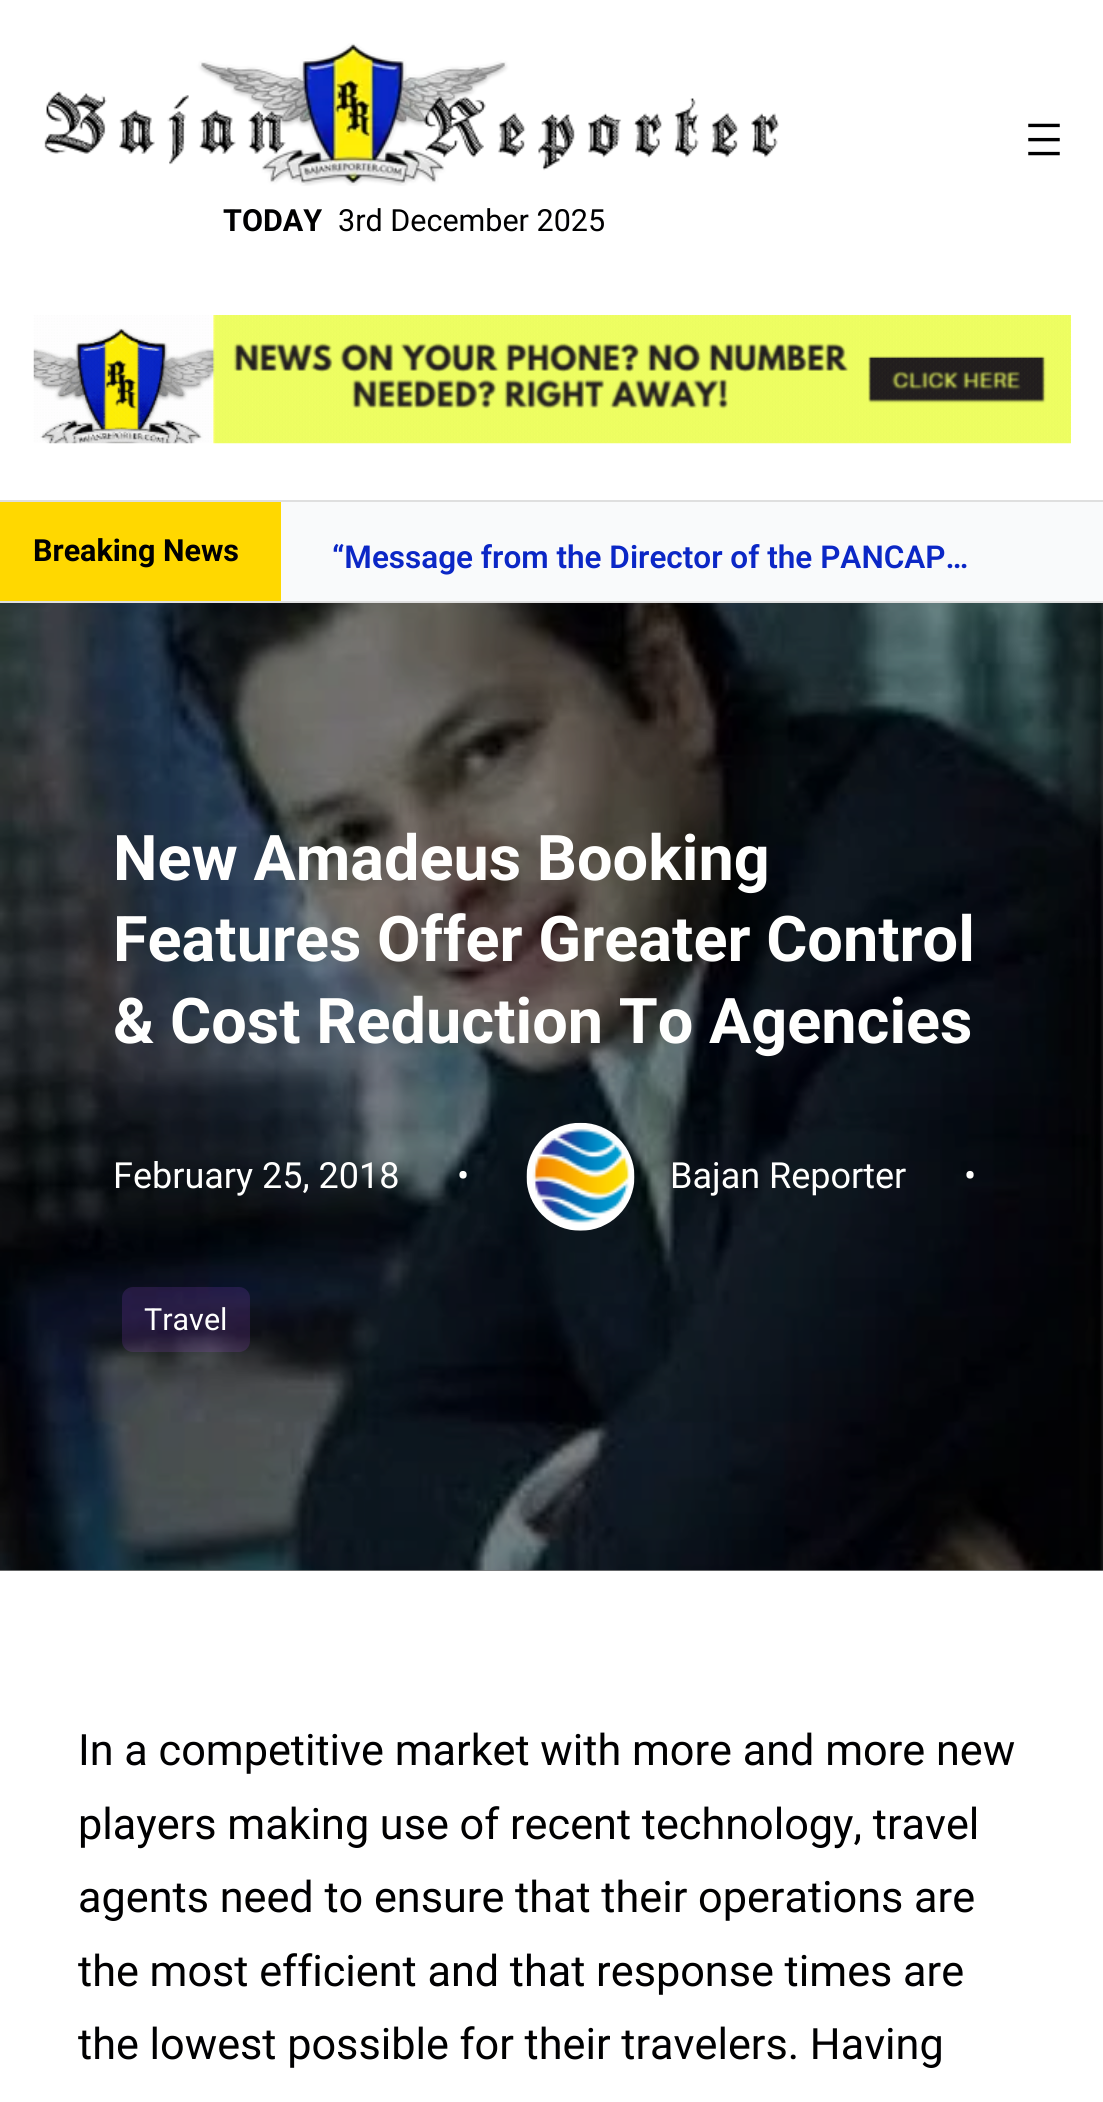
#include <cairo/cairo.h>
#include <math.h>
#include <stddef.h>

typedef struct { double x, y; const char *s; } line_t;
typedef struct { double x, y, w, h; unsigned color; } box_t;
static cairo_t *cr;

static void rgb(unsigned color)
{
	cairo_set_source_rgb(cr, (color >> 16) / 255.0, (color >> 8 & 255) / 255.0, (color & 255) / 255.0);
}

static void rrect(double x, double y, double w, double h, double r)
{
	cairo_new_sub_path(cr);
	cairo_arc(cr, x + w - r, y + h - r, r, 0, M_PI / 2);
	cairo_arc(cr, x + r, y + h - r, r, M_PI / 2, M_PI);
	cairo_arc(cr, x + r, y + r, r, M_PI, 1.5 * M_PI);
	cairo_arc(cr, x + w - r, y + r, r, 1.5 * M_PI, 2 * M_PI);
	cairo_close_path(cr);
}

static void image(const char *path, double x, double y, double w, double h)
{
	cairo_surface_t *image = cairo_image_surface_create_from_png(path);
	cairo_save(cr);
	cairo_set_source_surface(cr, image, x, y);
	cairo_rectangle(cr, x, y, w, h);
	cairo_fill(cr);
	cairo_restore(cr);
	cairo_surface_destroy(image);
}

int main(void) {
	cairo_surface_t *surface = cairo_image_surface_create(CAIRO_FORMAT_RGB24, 1103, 2102);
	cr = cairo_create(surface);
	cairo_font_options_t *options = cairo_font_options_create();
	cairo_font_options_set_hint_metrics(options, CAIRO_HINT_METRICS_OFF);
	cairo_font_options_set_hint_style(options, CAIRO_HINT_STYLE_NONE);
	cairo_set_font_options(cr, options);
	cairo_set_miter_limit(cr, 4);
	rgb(0xffffff);
	cairo_paint(cr);
	rgb(0x808080);
	cairo_rectangle(cr, 0, 1570, 1103, 1);
	cairo_fill(cr);
	image("img/1.png", 1028, 123, 32, 33);
	image("img/2.png", 44, 43, 735, 143);
	image("img/3.png", 33, 315, 1038, 129);
	{
		static const box_t items[] = {
			{0, 502, 281, 99, 0xffd800},
			{0, 500, 1103, 2, 0xdfdfdf},
			{0, 601, 1103, 2, 0xdfdfdf},
			{281, 502, 822, 99, 0xf9fafb},
		};
		for (size_t i = 0; i < sizeof items / sizeof *items; i++) {
			rgb(items[i].color);
			cairo_rectangle(cr, items[i].x, items[i].y, items[i].w, items[i].h);
			cairo_fill(cr);
		}
	}
	image("img/4.png", 0, 603, 1103, 968);
	image("img/5.png", 526, 1122, 109, 109);
	cairo_set_source_rgba(cr, 0.725, 0.322, 0.996, 0.15);
	rrect(122, 1287, 128, 65, 11);
	cairo_fill(cr);
	cairo_select_font_face(cr, "Roboto", CAIRO_FONT_SLANT_NORMAL, CAIRO_FONT_WEIGHT_BOLD);
	cairo_set_font_size(cr, 30.5);
	rgb(0x000001);
	cairo_move_to(cr, 223, 231);
	cairo_show_text(cr, "TODAY");
	cairo_select_font_face(cr, "Roboto", CAIRO_FONT_SLANT_NORMAL, CAIRO_FONT_WEIGHT_NORMAL);
	cairo_move_to(cr, 338, 231);
	cairo_show_text(cr, "3rd December 2025");
	cairo_select_font_face(cr, "Roboto", CAIRO_FONT_SLANT_NORMAL, CAIRO_FONT_WEIGHT_BOLD);
	cairo_move_to(cr, 33, 561);
	cairo_show_text(cr, "Breaking News");
	cairo_select_font_face(cr, "Roboto SemiBold", CAIRO_FONT_SLANT_NORMAL, CAIRO_FONT_WEIGHT_NORMAL);
	cairo_set_font_size(cr, 31.5);
	rgb(0x0b27c6);
	cairo_move_to(cr, 332, 568);
	cairo_show_text(cr, "“Message from the Director of the PANCAP…");
	cairo_select_font_face(cr, "Roboto", CAIRO_FONT_SLANT_NORMAL, CAIRO_FONT_WEIGHT_BOLD);
	cairo_set_font_size(cr, 63);
	rgb(0xfffffe);
	{
		static const line_t items[] = {
			{113, 880, "New Amadeus Booking"},
			{113, 961, "Features Offer Greater Control"},
			{113, 1043, "& Cost Reduction To Agencies"},
		};
		for (size_t i = 0; i < sizeof items / sizeof *items; i++) {
			cairo_move_to(cr, items[i].x, items[i].y);
			cairo_show_text(cr, items[i].s);
		}
	}
	cairo_select_font_face(cr, "Roboto", CAIRO_FONT_SLANT_NORMAL, CAIRO_FONT_WEIGHT_NORMAL);
	cairo_set_font_size(cr, 36);
	{
		static const line_t items[] = {
			{113, 1188, "February 25, 2018"},
			{457, 1188, "•"},
			{670, 1188, "Bajan Reporter"},
			{964, 1188, "•"},
		};
		for (size_t i = 0; i < sizeof items / sizeof *items; i++) {
			cairo_move_to(cr, items[i].x, items[i].y);
			cairo_show_text(cr, items[i].s);
		}
	}
	cairo_set_font_size(cr, 30.5);
	cairo_move_to(cr, 144, 1330);
	cairo_show_text(cr, "Travel");
	cairo_set_font_size(cr, 43.2);
	rgb(0x000001);
	{
		static const line_t items[] = {
			{78, 1765, "In a competitive market with more and more new"},
			{78, 1839, "players making use of recent technology, travel"},
			{78, 1912, "agents need to ensure that their operations are"},
			{78, 1986, "the most efficient and that response times are"},
			{78, 2059, "the lowest possible for their travelers. Having"},
		};
		for (size_t i = 0; i < sizeof items / sizeof *items; i++) {
			cairo_move_to(cr, items[i].x, items[i].y);
			cairo_show_text(cr, items[i].s);
		}
	}
	cairo_surface_write_to_png(surface, "page.png");
	cairo_font_options_destroy(options);
	cairo_destroy(cr);
	cairo_surface_destroy(surface);
	return 0;
}
